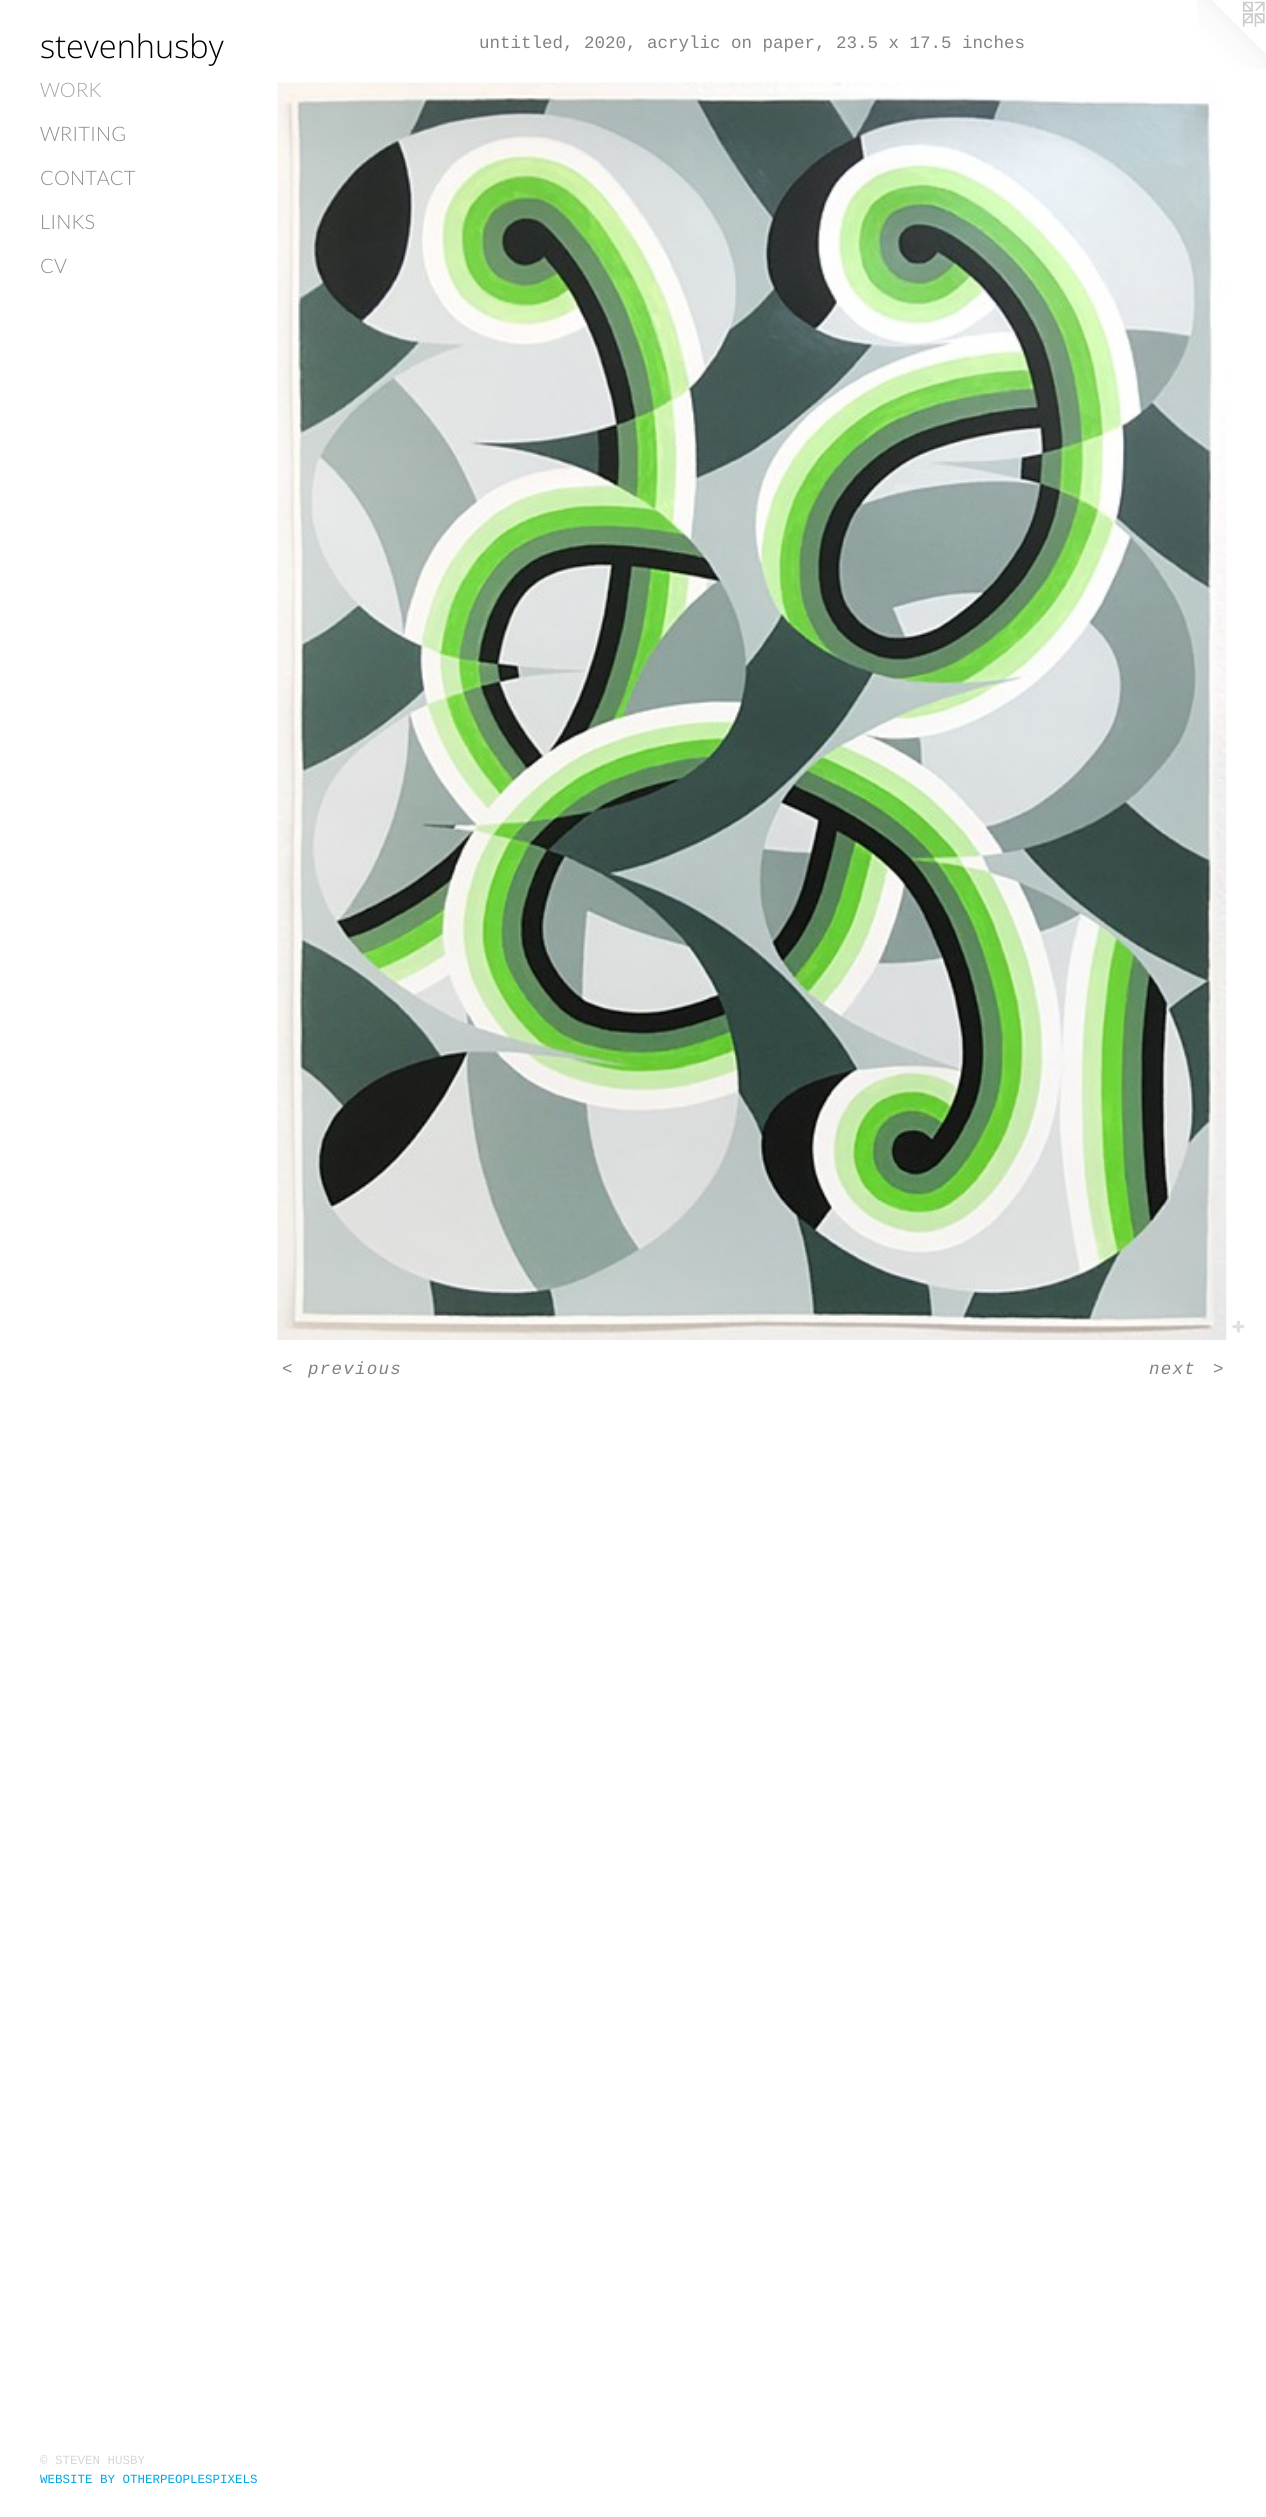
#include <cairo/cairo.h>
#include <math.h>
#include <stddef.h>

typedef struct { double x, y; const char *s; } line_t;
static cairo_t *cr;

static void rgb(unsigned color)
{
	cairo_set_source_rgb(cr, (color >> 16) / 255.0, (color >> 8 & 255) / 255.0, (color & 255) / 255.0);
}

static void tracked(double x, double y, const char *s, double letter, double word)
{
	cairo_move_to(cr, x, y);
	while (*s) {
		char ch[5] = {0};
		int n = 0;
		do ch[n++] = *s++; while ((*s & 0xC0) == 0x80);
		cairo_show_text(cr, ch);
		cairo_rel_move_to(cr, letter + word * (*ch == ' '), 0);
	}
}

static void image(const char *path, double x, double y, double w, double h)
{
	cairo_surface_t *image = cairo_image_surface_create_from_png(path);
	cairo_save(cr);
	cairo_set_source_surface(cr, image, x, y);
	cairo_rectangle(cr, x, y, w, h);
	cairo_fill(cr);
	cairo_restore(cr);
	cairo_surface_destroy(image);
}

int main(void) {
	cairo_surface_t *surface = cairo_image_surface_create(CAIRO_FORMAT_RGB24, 1266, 2517);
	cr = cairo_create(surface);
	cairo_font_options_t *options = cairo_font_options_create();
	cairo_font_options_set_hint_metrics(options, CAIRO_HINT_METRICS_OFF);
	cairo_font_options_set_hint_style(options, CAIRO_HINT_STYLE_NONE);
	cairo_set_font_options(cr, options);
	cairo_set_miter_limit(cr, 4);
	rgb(0xffffff);
	cairo_paint(cr);
	image("img/1.png", 277, 82, 950, 1258);
	image("img/2.png", 1232, 1320, 13, 13);
	image("img/3.png", 1197, 0, 69, 69);
	cairo_select_font_face(cr, "Open Sans Light", CAIRO_FONT_SLANT_NORMAL, CAIRO_FONT_WEIGHT_NORMAL);
	cairo_set_font_size(cr, 32.5);
	rgb(0x000000);
	cairo_move_to(cr, 40, 58);
	cairo_show_text(cr, "stevenhusby");
	cairo_select_font_face(cr, "Lato Light", CAIRO_FONT_SLANT_NORMAL, CAIRO_FONT_WEIGHT_NORMAL);
	cairo_set_font_size(cr, 20);
	rgb(0xa6a5a6);
	cairo_move_to(cr, 40, 97);
	cairo_show_text(cr, "WORK");
	rgb(0x8c8b8d);
	{
		static const line_t items[] = {
			{40, 141, "WRITING"},
			{40, 185, "CONTACT"},
			{40, 229, "LINKS"},
			{40, 273, "CV"},
		};
		for (size_t i = 0; i < sizeof items / sizeof *items; i++) {
			cairo_move_to(cr, items[i].x, items[i].y);
			cairo_show_text(cr, items[i].s);
		}
	}
	cairo_select_font_face(cr, "Liberation Mono", CAIRO_FONT_SLANT_NORMAL, CAIRO_FONT_WEIGHT_NORMAL);
	cairo_set_font_size(cr, 12.5);
	rgb(0xd6d6d6);
	cairo_move_to(cr, 40, 2464);
	cairo_show_text(cr, "© STEVEN HUSBY");
	rgb(0x00a7e6);
	cairo_move_to(cr, 40, 2483);
	cairo_show_text(cr, "WEBSITE BY OTHERPEOPLESPIXELS");
	cairo_set_font_size(cr, 17.5);
	rgb(0x828282);
	cairo_move_to(cr, 479, 48);
	cairo_show_text(cr, "untitled, 2020, acrylic on paper, 23.5 x 17.5 inches");
	cairo_select_font_face(cr, "Liberation Mono", CAIRO_FONT_SLANT_ITALIC, CAIRO_FONT_WEIGHT_NORMAL);
	{
		static const line_t items[] = {
			{282, 1374, "<"},
			{308, 1374, "previous"},
			{1149, 1374, "next"},
			{1213, 1374, ">"},
		};
		for (size_t i = 0; i < sizeof items / sizeof *items; i++) {
			tracked(items[i].x, items[i].y, items[i].s, 1.25, 0);
		}
	}
	cairo_surface_write_to_png(surface, "page.png");
	cairo_font_options_destroy(options);
	cairo_destroy(cr);
	cairo_surface_destroy(surface);
	return 0;
}
